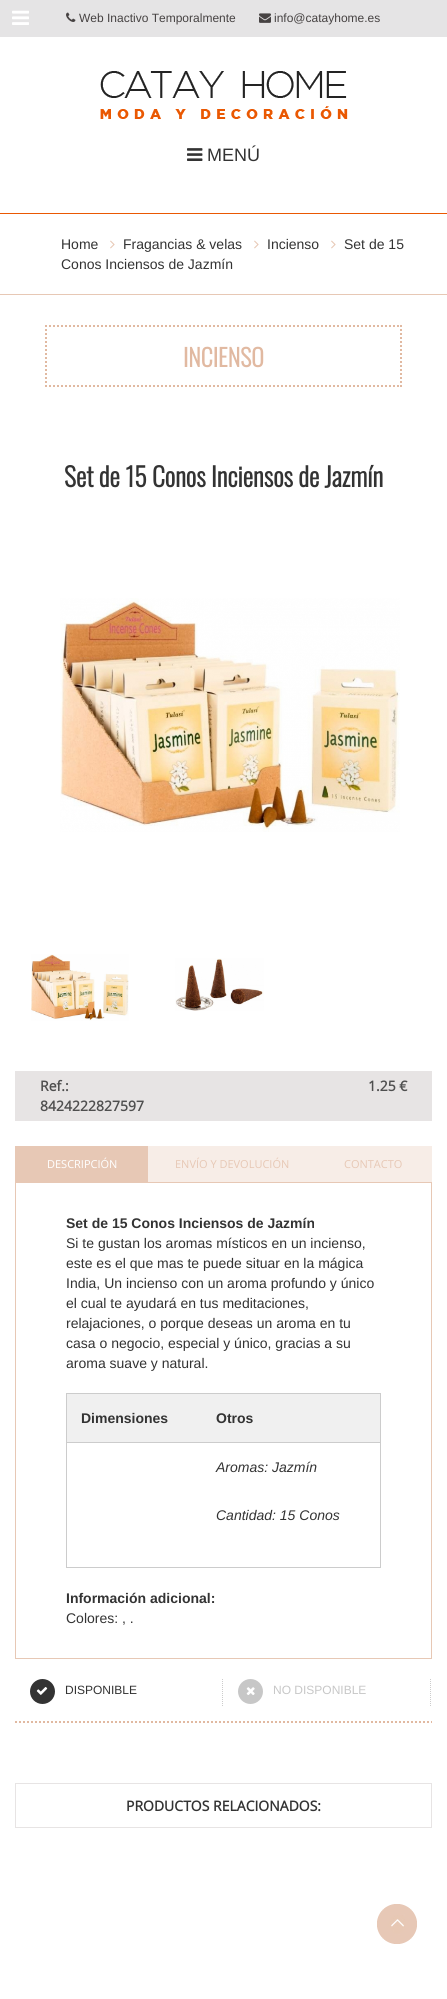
#include <cairo/cairo.h>
#include <math.h>
#include <stddef.h>

typedef struct { double x, y; const char *s; } line_t;
typedef struct { double x, y, w, h; unsigned color; } box_t;
static cairo_t *cr;

static void rgb(unsigned color)
{
	cairo_set_source_rgb(cr, (color >> 16) / 255.0, (color >> 8 & 255) / 255.0, (color & 255) / 255.0);
}

static void image(const char *path, double x, double y, double w, double h)
{
	cairo_surface_t *image = cairo_image_surface_create_from_png(path);
	cairo_save(cr);
	cairo_set_source_surface(cr, image, x, y);
	cairo_rectangle(cr, x, y, w, h);
	cairo_fill(cr);
	cairo_restore(cr);
	cairo_surface_destroy(image);
}

int main(void) {
	cairo_surface_t *surface = cairo_image_surface_create(CAIRO_FORMAT_RGB24, 447, 1999);
	cr = cairo_create(surface);
	cairo_font_options_t *options = cairo_font_options_create();
	cairo_font_options_set_hint_metrics(options, CAIRO_HINT_METRICS_OFF);
	cairo_font_options_set_hint_style(options, CAIRO_HINT_STYLE_NONE);
	cairo_set_font_options(cr, options);
	cairo_set_miter_limit(cr, 4);
	rgb(0xffffff);
	cairo_paint(cr);
	rgb(0xe5e4e5);
	cairo_rectangle(cr, 0, 0, 447, 37);
	cairo_fill(cr);
	image("img/1.png", 12, 10, 17, 15);
	image("img/2.png", 66, 12, 10, 10);
	image("img/3.png", 259, 13, 12, 10);
	rgb(0xea5802);
	cairo_rectangle(cr, 0, 213, 447, 1);
	cairo_fill(cr);
	image("img/4.png", 100, 71, 248, 48);
	image("img/5.png", 187, 148, 16, 13);
	rgb(0xe7c8b5);
	cairo_rectangle(cr, 0, 294, 447, 1);
	cairo_fill(cr);
	image("img/6.png", 110, 240, 5, 9);
	image("img/6.png", 254, 240, 5, 9);
	image("img/6.png", 331, 240, 5, 9);
	cairo_new_path(cr);
	cairo_move_to(cr, 45, 326);
	cairo_line_to(cr, 402, 326);
	rgb(0xe1b9a1);
	cairo_set_dash(cr, (double[]){2, 2}, 2, 0);
	cairo_stroke(cr);
	cairo_new_path(cr);
	cairo_move_to(cr, 401, 325);
	cairo_line_to(cr, 401, 387);
	cairo_stroke(cr);
	cairo_new_path(cr);
	cairo_move_to(cr, 45, 386);
	cairo_line_to(cr, 402, 386);
	cairo_stroke(cr);
	cairo_new_path(cr);
	cairo_move_to(cr, 46, 325);
	cairo_line_to(cr, 46, 387);
	cairo_stroke(cr);
	image("img/7.png", 60, 598, 340, 234);
	image("img/8.png", 31, 954, 98, 67);
	image("img/9.png", 175, 958, 89, 53);
	{
		static const box_t items[] = {
			{15, 1071, 417, 50, 0xe7e4e4},
			{15, 1146, 133, 36, 0xe7c8b5},
			{148, 1146, 284, 36, 0xf7ede7},
		};
		for (size_t i = 0; i < sizeof items / sizeof *items; i++) {
			rgb(items[i].color);
			cairo_rectangle(cr, items[i].x, items[i].y, items[i].w, items[i].h);
			cairo_fill(cr);
		}
	}
	cairo_rectangle(cr, 15.5, 1182.5, 416, 476);
	rgb(0xe7c8b5);
	cairo_set_line_width(cr, 1);
	cairo_set_dash(cr, NULL, 0, 0);
	cairo_stroke(cr);
	{
		static const box_t items[] = {
			{66, 1393, 315, 1, 0xcccccc},
			{380, 1393, 1, 175, 0xcccccc},
			{66, 1567, 315, 1, 0xcccccc},
			{66, 1393, 1, 175, 0xcccccc},
			{67, 1394, 313, 48, 0xf0f0f0},
			{66, 1442, 315, 1, 0xcccccc},
		};
		for (size_t i = 0; i < sizeof items / sizeof *items; i++) {
			rgb(items[i].color);
			cairo_rectangle(cr, items[i].x, items[i].y, items[i].w, items[i].h);
			cairo_fill(cr);
		}
	}
	cairo_new_path(cr);
	cairo_move_to(cr, 15, 1722);
	cairo_line_to(cr, 432, 1722);
	rgb(0xe1b9a1);
	cairo_set_line_width(cr, 2);
	cairo_set_dash(cr, (double[]){2, 2}, 2, 0);
	cairo_stroke(cr);
	cairo_new_path(cr);
	cairo_move_to(cr, 222.5, 1679);
	cairo_line_to(cr, 222.5, 1707);
	rgb(0xcccccc);
	cairo_set_line_width(cr, 1);
	cairo_set_dash(cr, (double[]){1, 1}, 2, 0);
	cairo_stroke(cr);
	rgb(0x333333);
	cairo_arc(cr, 42.5, 1691.5, 12.5, 0, 2 * M_PI);
	cairo_fill(cr);
	image("img/10.png", 36, 1687, 12, 8);
	cairo_new_path(cr);
	cairo_move_to(cr, 430.5, 1679);
	cairo_line_to(cr, 430.5, 1707);
	rgb(0xcccccc);
	cairo_stroke(cr);
	rgb(0xc7c7c7);
	cairo_arc(cr, 250.5, 1691.5, 12.5, 0, 2 * M_PI);
	cairo_fill(cr);
	image("img/11.png", 246, 1687, 9, 8);
	cairo_rectangle(cr, 15.5, 1783.5, 416, 44);
	rgb(0xe7e4e4);
	cairo_set_dash(cr, NULL, 0, 0);
	cairo_stroke(cr);
	image("img/12.png", 377, 1904, 40, 40);
	cairo_select_font_face(cr, "Liberation Sans", CAIRO_FONT_SLANT_NORMAL, CAIRO_FONT_WEIGHT_NORMAL);
	cairo_set_font_size(cr, 12);
	rgb(0x464242);
	cairo_move_to(cr, 79, 22);
	cairo_show_text(cr, "Web Inactivo Temporalmente");
	cairo_move_to(cr, 274, 22);
	cairo_show_text(cr, "info@catayhome.es");
	cairo_set_font_size(cr, 18);
	rgb(0x333333);
	cairo_move_to(cr, 207, 161);
	cairo_show_text(cr, "MENÚ");
	cairo_set_font_size(cr, 14);
	{
		static const line_t items[] = {
			{61, 249, "Home"},
			{123, 249, "Fragancias & velas"},
			{267, 249, "Incienso"},
			{344, 249, "Set de 15"},
			{61, 269, "Conos Inciensos de Jazmín"},
		};
		for (size_t i = 0; i < sizeof items / sizeof *items; i++) {
			cairo_move_to(cr, items[i].x, items[i].y);
			cairo_show_text(cr, items[i].s);
		}
	}
	cairo_select_font_face(cr, "Oswald", CAIRO_FONT_SLANT_NORMAL, CAIRO_FONT_WEIGHT_BOLD);
	cairo_set_font_size(cr, 24);
	rgb(0xe1b9a1);
	cairo_move_to(cr, 183, 367);
	cairo_show_text(cr, "INCIENSO");
	cairo_set_font_size(cr, 26);
	rgb(0x333333);
	cairo_move_to(cr, 64, 487);
	cairo_show_text(cr, "Set de 15 Conos Inciensos de Jazmín");
	cairo_select_font_face(cr, "Open Sans", CAIRO_FONT_SLANT_NORMAL, CAIRO_FONT_WEIGHT_BOLD);
	cairo_set_font_size(cr, 14);
	rgb(0x4f4f4f);
	{
		static const line_t items[] = {
			{40, 1091, "Ref.:"},
			{40, 1111, "8424222827597"},
			{368, 1091, "1.25 €"},
		};
		for (size_t i = 0; i < sizeof items / sizeof *items; i++) {
			cairo_move_to(cr, items[i].x, items[i].y);
			cairo_show_text(cr, items[i].s);
		}
	}
	cairo_select_font_face(cr, "Open Sans", CAIRO_FONT_SLANT_NORMAL, CAIRO_FONT_WEIGHT_NORMAL);
	cairo_set_font_size(cr, 11);
	rgb(0xffffff);
	cairo_move_to(cr, 47, 1168);
	cairo_show_text(cr, "DESCRIPCIÓN");
	rgb(0xe7c8b5);
	cairo_move_to(cr, 175, 1168);
	cairo_show_text(cr, "ENVÍO Y DEVOLUCIÓN");
	cairo_move_to(cr, 344, 1168);
	cairo_show_text(cr, "CONTACTO");
	cairo_select_font_face(cr, "Liberation Sans", CAIRO_FONT_SLANT_NORMAL, CAIRO_FONT_WEIGHT_BOLD);
	cairo_set_font_size(cr, 14);
	rgb(0x333333);
	cairo_move_to(cr, 66, 1228);
	cairo_show_text(cr, "Set de 15 Conos Inciensos de Jazmín");
	cairo_select_font_face(cr, "Liberation Sans", CAIRO_FONT_SLANT_NORMAL, CAIRO_FONT_WEIGHT_NORMAL);
	{
		static const line_t items[] = {
			{66, 1248, "Si te gustan los aromas místicos en un incienso,"},
			{66, 1268, "este es el que mas te puede situar en la mágica"},
			{66, 1288, "India, Un incienso con un aroma profundo y único"},
			{66, 1308, "el cual te ayudará en tus meditaciones,"},
			{66, 1328, "relajaciones, o porque deseas un aroma en tu"},
			{66, 1348, "casa o negocio, especial y único, gracias a su"},
			{66, 1368, "aroma suave y natural."},
		};
		for (size_t i = 0; i < sizeof items / sizeof *items; i++) {
			cairo_move_to(cr, items[i].x, items[i].y);
			cairo_show_text(cr, items[i].s);
		}
	}
	cairo_select_font_face(cr, "Liberation Sans", CAIRO_FONT_SLANT_NORMAL, CAIRO_FONT_WEIGHT_BOLD);
	cairo_move_to(cr, 81, 1423);
	cairo_show_text(cr, "Dimensiones");
	cairo_move_to(cr, 216, 1423);
	cairo_show_text(cr, "Otros");
	cairo_select_font_face(cr, "Liberation Sans", CAIRO_FONT_SLANT_ITALIC, CAIRO_FONT_WEIGHT_NORMAL);
	cairo_move_to(cr, 216, 1472);
	cairo_show_text(cr, "Aromas: Jazmín");
	cairo_move_to(cr, 216, 1520);
	cairo_show_text(cr, "Cantidad: 15 Conos");
	cairo_select_font_face(cr, "Liberation Sans", CAIRO_FONT_SLANT_NORMAL, CAIRO_FONT_WEIGHT_BOLD);
	cairo_move_to(cr, 66, 1603);
	cairo_show_text(cr, "Información adicional:");
	cairo_select_font_face(cr, "Liberation Sans", CAIRO_FONT_SLANT_NORMAL, CAIRO_FONT_WEIGHT_NORMAL);
	cairo_move_to(cr, 66, 1623);
	cairo_show_text(cr, "Colores: , .");
	cairo_set_font_size(cr, 12);
	cairo_move_to(cr, 65, 1694);
	cairo_show_text(cr, "DISPONIBLE");
	rgb(0xc7c7c7);
	cairo_move_to(cr, 273, 1694);
	cairo_show_text(cr, "NO DISPONIBLE");
	cairo_select_font_face(cr, "Open Sans", CAIRO_FONT_SLANT_NORMAL, CAIRO_FONT_WEIGHT_BOLD);
	cairo_set_font_size(cr, 14);
	rgb(0x333333);
	cairo_move_to(cr, 126, 1811);
	cairo_show_text(cr, "PRODUCTOS RELACIONADOS:");
	cairo_surface_write_to_png(surface, "page.png");
	cairo_font_options_destroy(options);
	cairo_destroy(cr);
	cairo_surface_destroy(surface);
	return 0;
}
